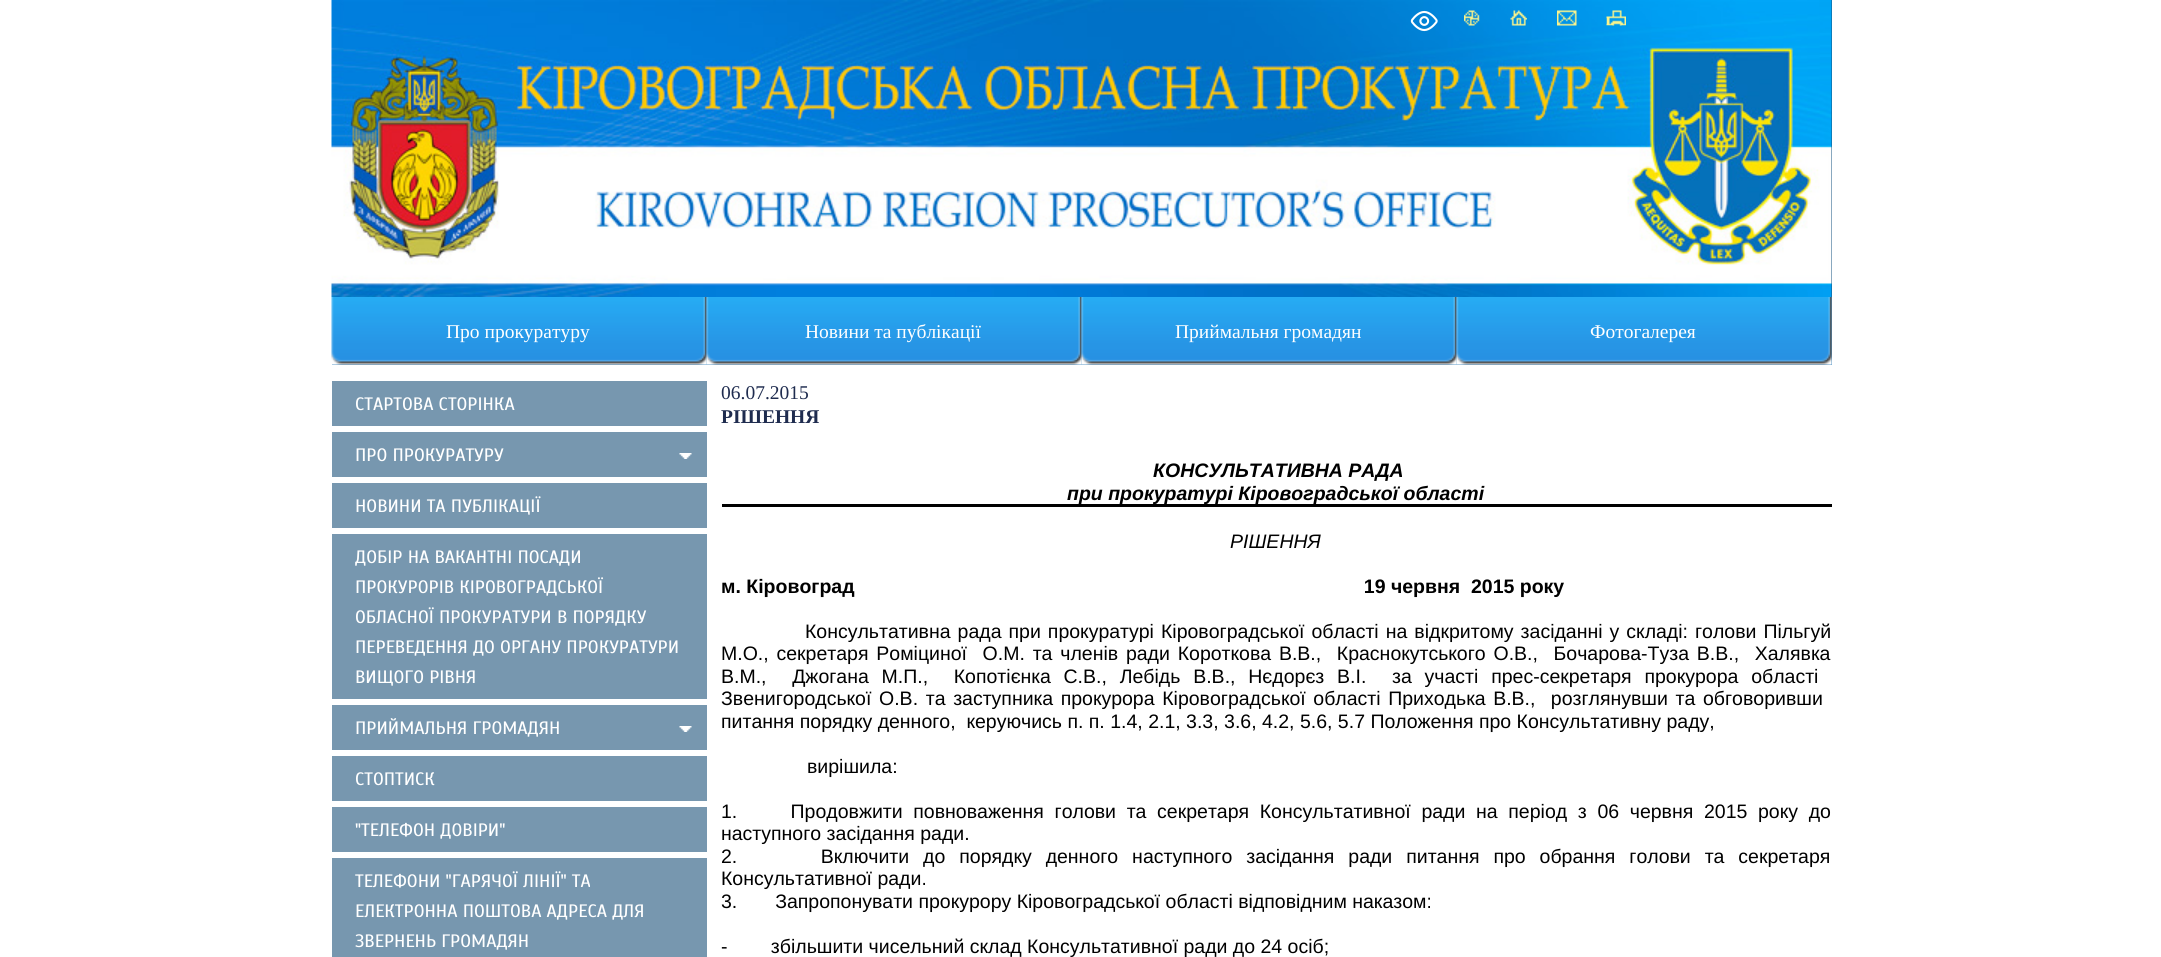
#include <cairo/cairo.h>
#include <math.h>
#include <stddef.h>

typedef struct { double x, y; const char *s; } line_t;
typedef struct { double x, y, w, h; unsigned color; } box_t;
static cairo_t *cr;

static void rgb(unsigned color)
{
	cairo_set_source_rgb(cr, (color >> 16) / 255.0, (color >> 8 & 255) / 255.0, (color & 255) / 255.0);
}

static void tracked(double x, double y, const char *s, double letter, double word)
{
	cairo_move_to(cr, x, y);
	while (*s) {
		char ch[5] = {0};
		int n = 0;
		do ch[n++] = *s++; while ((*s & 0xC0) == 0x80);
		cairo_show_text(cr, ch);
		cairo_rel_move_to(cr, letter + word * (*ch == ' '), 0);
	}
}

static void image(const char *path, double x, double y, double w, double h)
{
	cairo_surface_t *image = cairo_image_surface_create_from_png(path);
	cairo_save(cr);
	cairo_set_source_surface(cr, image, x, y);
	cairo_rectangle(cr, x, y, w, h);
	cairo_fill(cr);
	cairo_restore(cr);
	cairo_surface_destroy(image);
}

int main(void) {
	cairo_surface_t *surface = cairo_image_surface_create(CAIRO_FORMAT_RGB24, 2161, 957);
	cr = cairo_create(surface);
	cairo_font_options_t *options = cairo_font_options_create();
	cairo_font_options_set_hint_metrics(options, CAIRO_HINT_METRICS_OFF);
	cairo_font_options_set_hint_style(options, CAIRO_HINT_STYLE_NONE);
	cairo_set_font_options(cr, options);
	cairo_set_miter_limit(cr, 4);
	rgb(0xffffff);
	cairo_paint(cr);
	rgb(0x145281);
	cairo_rectangle(cr, 1831, 0, 1, 297);
	cairo_fill(cr);
	image("img/1.png", 331, 0, 1501, 297);
	image("img/2.png", 1410, 10, 28, 22);
	image("img/3.png", 1464, 10, 16, 16);
	image("img/4.png", 1510, 10, 17, 16);
	image("img/5.png", 1557, 10, 20, 16);
	image("img/6.png", 1606, 10, 20, 16);
	rgb(0x5d99c6);
	cairo_rectangle(cr, 332, 297, 1500, 68);
	cairo_fill(cr);
	image("img/7.png", 331, 297, 376, 68);
	image("img/8.png", 706, 297, 376, 68);
	image("img/9.png", 1081, 297, 376, 68);
	image("img/8.png", 1456, 297, 376, 68);
	rgb(0x7797af);
	cairo_rectangle(cr, 332, 381, 375, 45);
	cairo_fill(cr);
	cairo_rectangle(cr, 332, 432, 375, 45);
	cairo_fill(cr);
	image("img/10.png", 679, 453, 13, 6);
	{
		static const box_t items[] = {
			{332, 483, 375, 45, 0x7797af},
			{332, 534, 375, 165, 0x7797af},
			{332, 705, 375, 45, 0x7797af},
		};
		for (size_t i = 0; i < sizeof items / sizeof *items; i++) {
			rgb(items[i].color);
			cairo_rectangle(cr, items[i].x, items[i].y, items[i].w, items[i].h);
			cairo_fill(cr);
		}
	}
	image("img/10.png", 679, 726, 13, 6);
	{
		static const box_t items[] = {
			{332, 756, 375, 45, 0x7797af},
			{332, 807, 375, 45, 0x7797af},
			{332, 858, 375, 99, 0x7797af},
			{722, 504, 1110, 3, 0x000000},
		};
		for (size_t i = 0; i < sizeof items / sizeof *items; i++) {
			rgb(items[i].color);
			cairo_rectangle(cr, items[i].x, items[i].y, items[i].w, items[i].h);
			cairo_fill(cr);
		}
	}
	cairo_select_font_face(cr, "Liberation Serif", CAIRO_FONT_SLANT_NORMAL, CAIRO_FONT_WEIGHT_NORMAL);
	cairo_set_font_size(cr, 19.5);
	rgb(0xffffff);
	{
		static const line_t items[] = {
			{446, 338, "Про прокуратуру"},
			{805, 338, "Новини та публікації"},
			{1175, 338, "Приймальня громадян"},
			{1590, 338, "Фотогалерея"},
		};
		for (size_t i = 0; i < sizeof items / sizeof *items; i++) {
			cairo_move_to(cr, items[i].x, items[i].y);
			cairo_show_text(cr, items[i].s);
		}
	}
	cairo_select_font_face(cr, "Scada", CAIRO_FONT_SLANT_NORMAL, CAIRO_FONT_WEIGHT_NORMAL);
	cairo_set_font_size(cr, 18);
	{
		static const line_t items[] = {
			{355, 410, "СТАРТОВА СТОРІНКА"},
			{355, 461, "ПРО ПРОКУРАТУРУ"},
			{355, 512, "НОВИНИ ТА ПУБЛІКАЦІЇ"},
			{355, 563, "ДОБІР НА ВАКАНТНІ ПОСАДИ"},
			{355, 593, "ПРОКУРОРІВ КІРОВОГРАДСЬКОЇ"},
			{355, 623, "ОБЛАСНОЇ ПРОКУРАТУРИ В ПОРЯДКУ"},
			{355, 653, "ПЕРЕВЕДЕННЯ ДО ОРГАНУ ПРОКУРАТУРИ"},
			{355, 683, "ВИЩОГО РІВНЯ"},
			{355, 734, "ПРИЙМАЛЬНЯ ГРОМАДЯН"},
			{355, 785, "СТОПТИСК"},
			{355, 836, "\"ТЕЛЕФОН ДОВІРИ\""},
			{355, 887, "ТЕЛЕФОНИ \"ГАРЯЧОЇ ЛІНІЇ\" ТА"},
			{355, 917, "ЕЛЕКТРОННА ПОШТОВА АДРЕСА ДЛЯ"},
			{355, 947, "ЗВЕРНЕНЬ ГРОМАДЯН"},
		};
		for (size_t i = 0; i < sizeof items / sizeof *items; i++) {
			cairo_move_to(cr, items[i].x, items[i].y);
			cairo_show_text(cr, items[i].s);
		}
	}
	cairo_select_font_face(cr, "Liberation Serif", CAIRO_FONT_SLANT_NORMAL, CAIRO_FONT_WEIGHT_NORMAL);
	cairo_set_font_size(cr, 19.5);
	rgb(0x1f2c4f);
	cairo_move_to(cr, 721, 399);
	cairo_show_text(cr, "06.07.2015");
	cairo_select_font_face(cr, "Liberation Serif", CAIRO_FONT_SLANT_NORMAL, CAIRO_FONT_WEIGHT_BOLD);
	cairo_move_to(cr, 721, 423);
	cairo_show_text(cr, "РІШЕННЯ");
	cairo_select_font_face(cr, "Liberation Sans", CAIRO_FONT_SLANT_ITALIC, CAIRO_FONT_WEIGHT_BOLD);
	rgb(0x000000);
	cairo_move_to(cr, 1153, 477);
	cairo_show_text(cr, "КОНСУЛЬТАТИВНА РАДА");
	cairo_move_to(cr, 1067, 500);
	cairo_show_text(cr, "при прокуратурі Кіровоградської області");
	cairo_select_font_face(cr, "Liberation Sans", CAIRO_FONT_SLANT_ITALIC, CAIRO_FONT_WEIGHT_NORMAL);
	cairo_move_to(cr, 1230, 548);
	cairo_show_text(cr, "РІШЕННЯ");
	cairo_select_font_face(cr, "Liberation Sans", CAIRO_FONT_SLANT_NORMAL, CAIRO_FONT_WEIGHT_BOLD);
	cairo_move_to(cr, 721, 593);
	cairo_show_text(cr, "м. Кіровоград                                                                                              19 червня  2015 року");
	cairo_select_font_face(cr, "Liberation Sans", CAIRO_FONT_SLANT_NORMAL, CAIRO_FONT_WEIGHT_NORMAL);
	tracked(805, 638, "Консультативна рада при прокуратурі Кіровоградської області на відкритому засіданні у складі: голови Пільгуй", 0, 1.6);
	tracked(721, 660, "М.О., секретаря Роміциної  О.М. та членів ради Короткова В.В.,  Краснокутського О.В.,  Бочарова-Туза В.В.,  Халявка", 0, 2.4);
	tracked(721, 683, "В.М.,  Джогана М.П.,  Копотієнка С.В., Лебідь В.В., Нєдорєз В.І.  за участі прес-секретаря прокурора області", 0, 7.4);
	tracked(721, 705, "Звенигородської О.В. та заступника прокурора Кіровоградської області Приходька В.В.,  розглянувши та обговоривши", 0, 2.25);
	cairo_move_to(cr, 721, 728);
	cairo_show_text(cr, "питання порядку денного,  керуючись п. п. 1.4, 2.1, 3.3, 3.6, 4.2, 5.6, 5.7 Положення про Консультативну раду,");
	cairo_move_to(cr, 807, 773);
	cairo_show_text(cr, "вирішила:");
	tracked(721, 818, "1.     Продовжити повноваження голови та секретаря Консультативної ради на період з 06 червня 2015 року до", 0, 5.25);
	cairo_move_to(cr, 721, 840);
	cairo_show_text(cr, "наступного засідання ради.");
	tracked(721, 863, "2.      Включити до порядку денного наступного засідання ради питання про обрання голови та секретаря", 0, 8.5);
	{
		static const line_t items[] = {
			{721, 885, "Консультативної ради."},
			{721, 908, "3.       Запропонувати прокурору Кіровоградської області відповідним наказом:"},
			{721, 953, "-        збільшити чисельний склад Консультативної ради до 24 осіб;"},
		};
		for (size_t i = 0; i < sizeof items / sizeof *items; i++) {
			cairo_move_to(cr, items[i].x, items[i].y);
			cairo_show_text(cr, items[i].s);
		}
	}
	cairo_surface_write_to_png(surface, "page.png");
	cairo_font_options_destroy(options);
	cairo_destroy(cr);
	cairo_surface_destroy(surface);
	return 0;
}
